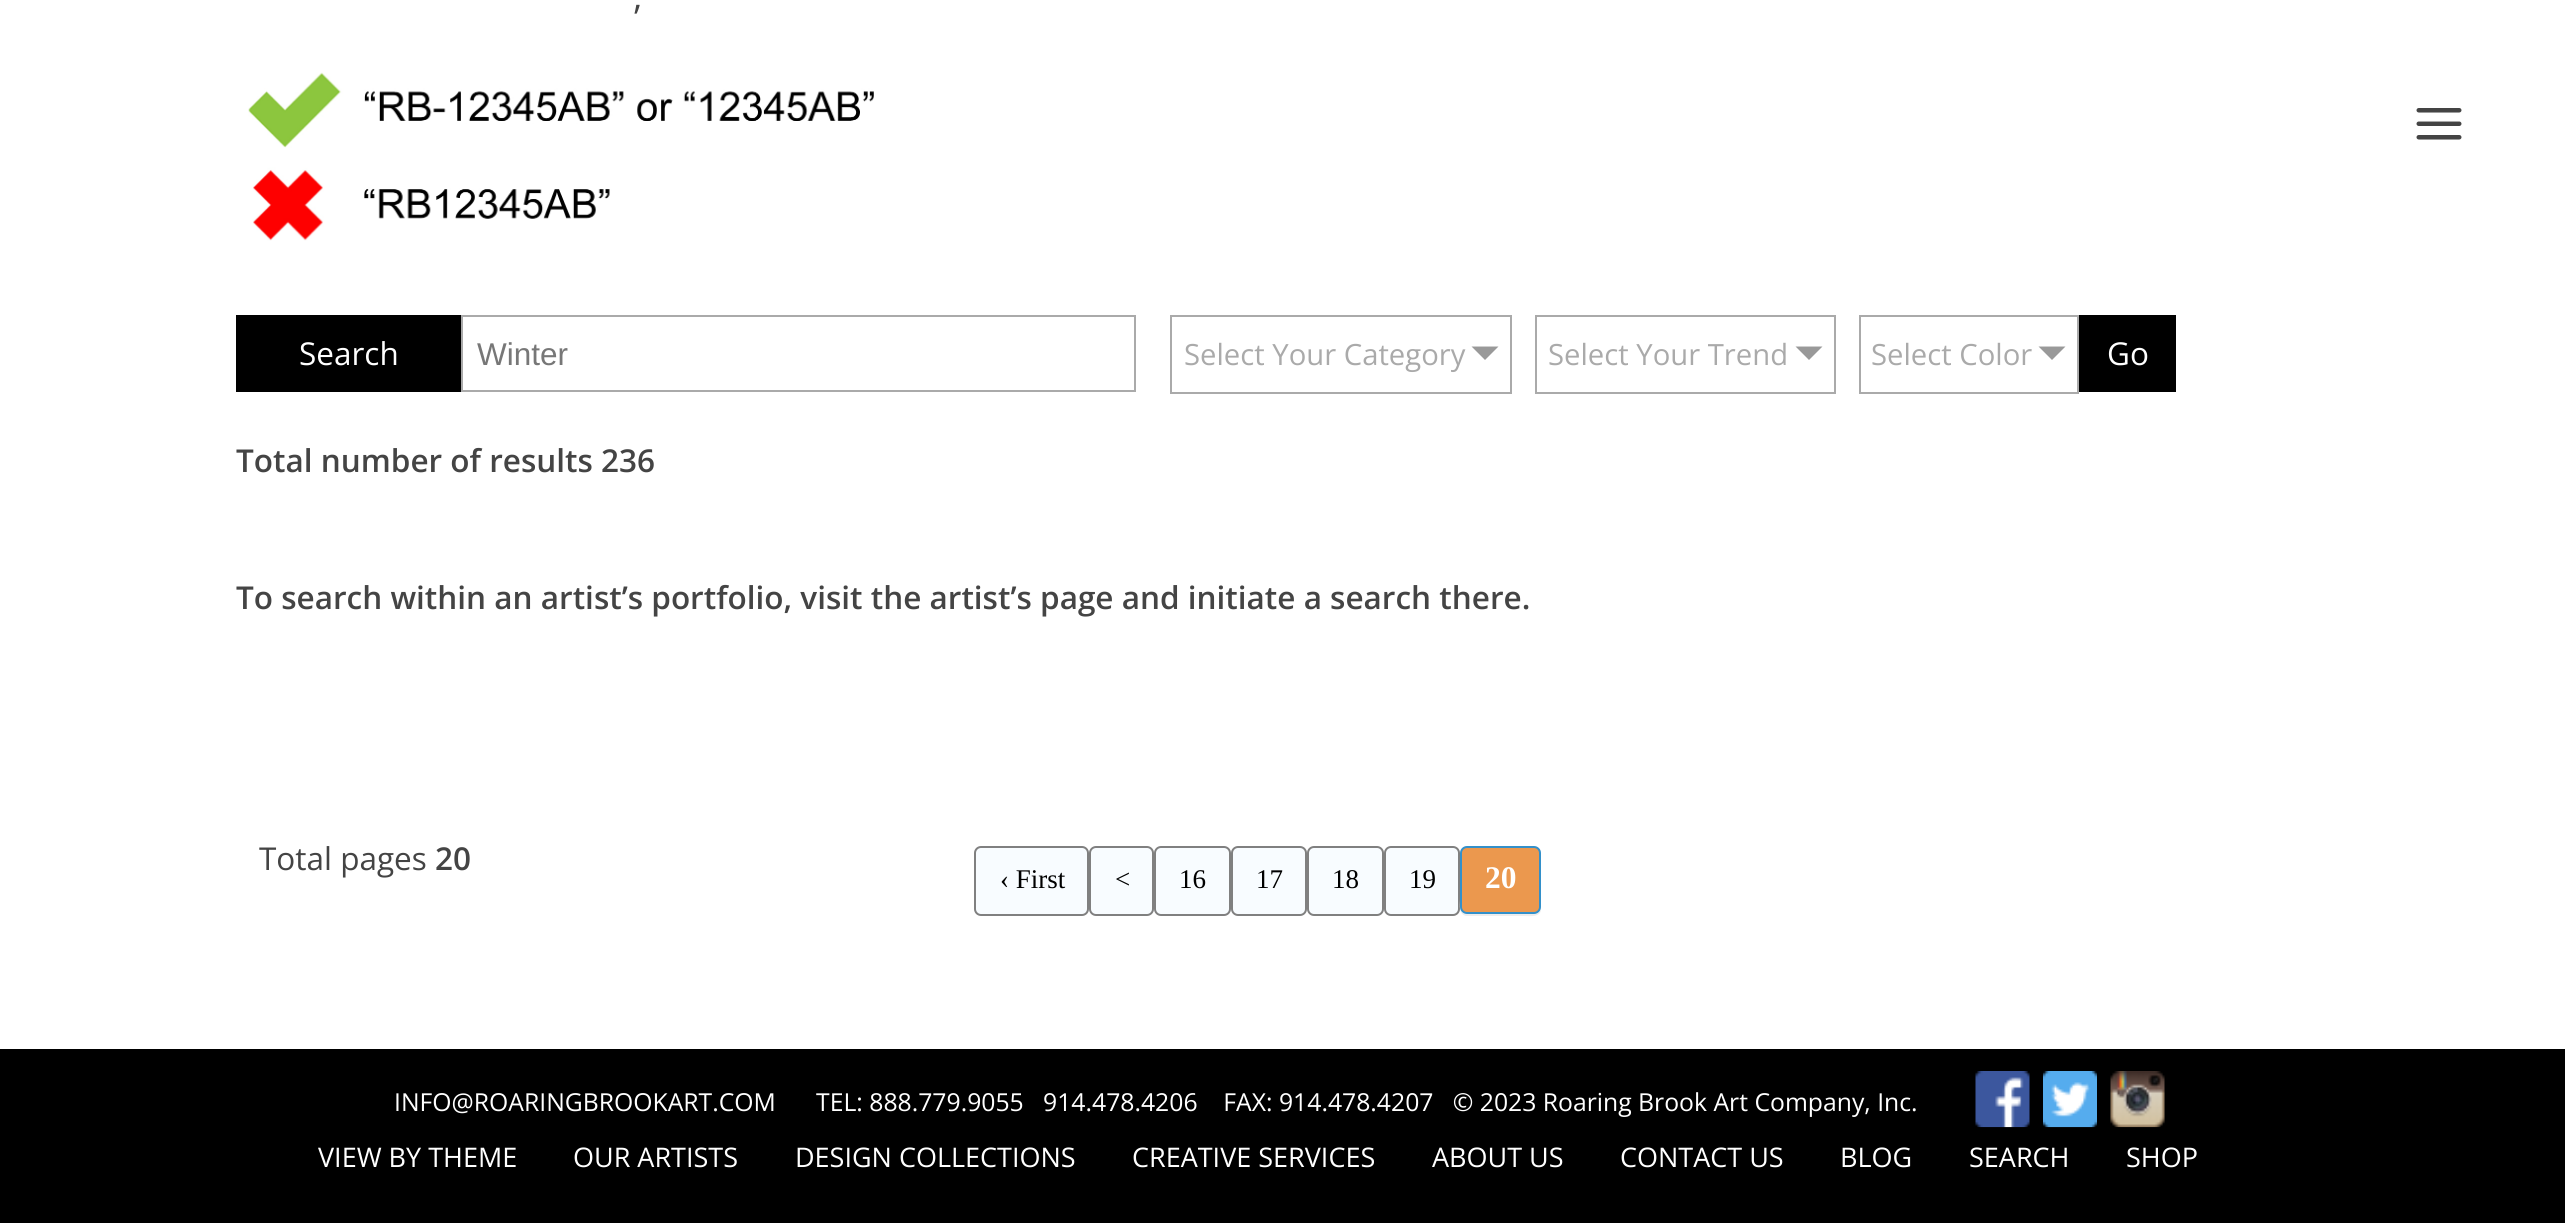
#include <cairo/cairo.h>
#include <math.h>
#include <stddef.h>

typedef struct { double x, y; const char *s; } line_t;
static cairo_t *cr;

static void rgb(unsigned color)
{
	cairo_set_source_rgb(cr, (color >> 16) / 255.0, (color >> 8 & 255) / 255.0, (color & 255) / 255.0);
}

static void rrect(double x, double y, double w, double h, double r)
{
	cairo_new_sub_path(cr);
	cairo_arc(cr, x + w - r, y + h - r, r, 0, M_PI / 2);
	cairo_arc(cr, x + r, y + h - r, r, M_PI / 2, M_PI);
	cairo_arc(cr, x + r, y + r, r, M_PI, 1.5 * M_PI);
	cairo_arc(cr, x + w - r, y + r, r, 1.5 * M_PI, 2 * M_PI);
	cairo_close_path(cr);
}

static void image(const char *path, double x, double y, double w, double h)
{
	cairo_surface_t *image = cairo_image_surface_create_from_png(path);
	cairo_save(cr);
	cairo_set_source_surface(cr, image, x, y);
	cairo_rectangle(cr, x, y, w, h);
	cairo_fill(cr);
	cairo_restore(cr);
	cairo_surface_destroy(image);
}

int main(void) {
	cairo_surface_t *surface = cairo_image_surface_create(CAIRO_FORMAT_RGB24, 2565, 1223);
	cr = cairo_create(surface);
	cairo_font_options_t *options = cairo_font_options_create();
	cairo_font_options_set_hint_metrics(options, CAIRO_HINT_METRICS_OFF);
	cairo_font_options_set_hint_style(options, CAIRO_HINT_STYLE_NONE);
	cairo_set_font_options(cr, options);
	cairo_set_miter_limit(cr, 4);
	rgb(0xffffff);
	cairo_paint(cr);
	image("img/1.png", 248, 72, 626, 169);
	rgb(0x000000);
	cairo_rectangle(cr, 236, 315, 225, 77);
	cairo_fill(cr);
	cairo_rectangle(cr, 462, 316, 673, 75);
	rgb(0xaaaaaa);
	cairo_stroke(cr);
	cairo_rectangle(cr, 1171, 316, 340, 77);
	cairo_stroke(cr);
	rgb(0x999999);
	cairo_new_path(cr);
	cairo_move_to(cr, 1471.5, 346.5);
	cairo_line_to(cr, 1498.5, 346.5);
	cairo_line_to(cr, 1485, 360);
	cairo_close_path(cr);
	cairo_fill(cr);
	cairo_rectangle(cr, 1536, 316, 299, 77);
	rgb(0xaaaaaa);
	cairo_stroke(cr);
	rgb(0x999999);
	cairo_new_path(cr);
	cairo_move_to(cr, 1795.5, 346.5);
	cairo_line_to(cr, 1822.5, 346.5);
	cairo_line_to(cr, 1809, 360);
	cairo_close_path(cr);
	cairo_fill(cr);
	cairo_rectangle(cr, 1860, 316, 218, 77);
	rgb(0xaaaaaa);
	cairo_stroke(cr);
	rgb(0x999999);
	cairo_new_path(cr);
	cairo_move_to(cr, 2038.5, 346.5);
	cairo_line_to(cr, 2065.5, 346.5);
	cairo_line_to(cr, 2052, 360);
	cairo_close_path(cr);
	cairo_fill(cr);
	rgb(0x000000);
	cairo_rectangle(cr, 2079, 315, 97, 77);
	cairo_fill(cr);
	rgb(0xf8fcff);
	rrect(975, 847, 113, 68, 6);
	cairo_fill_preserve(cr);
	rgb(0x808080);
	cairo_stroke(cr);
	rgb(0xf8fcff);
	rrect(1090, 847, 63, 68, 6);
	cairo_fill_preserve(cr);
	rgb(0x808080);
	cairo_stroke(cr);
	rgb(0xf8fcff);
	rrect(1155, 847, 75, 68, 6);
	cairo_fill_preserve(cr);
	rgb(0x808080);
	cairo_stroke(cr);
	rgb(0xf8fcff);
	rrect(1232, 847, 74, 68, 6);
	cairo_fill_preserve(cr);
	rgb(0x808080);
	cairo_stroke(cr);
	rgb(0xf8fcff);
	rrect(1308, 847, 75, 68, 6);
	cairo_fill_preserve(cr);
	rgb(0x808080);
	cairo_stroke(cr);
	rgb(0xf8fcff);
	rrect(1385, 847, 74, 68, 6);
	cairo_fill_preserve(cr);
	rgb(0x808080);
	cairo_stroke(cr);
	rgb(0xededed);
	cairo_new_path(cr);
	cairo_move_to(cr, 1460, 853);
	cairo_line_to(cr, 1460, 900);
	cairo_curve_to(cr, 1460, 905, 1458, 914, 1466, 916);
	cairo_line_to(cr, 1523, 916);
	cairo_curve_to(cr, 1529, 916, 1541, 918, 1541, 909);
	cairo_curve_to(cr, 1540, 911, 1538, 914, 1534, 914);
	cairo_line_to(cr, 1467, 914);
	cairo_curve_to(cr, 1463, 914, 1460, 910, 1460, 907);
	cairo_close_path(cr);
	cairo_fill(cr);
	rgb(0xeb984e);
	rrect(1461, 847, 79, 66, 6);
	cairo_fill_preserve(cr);
	rgb(0x3390ca);
	cairo_stroke(cr);
	rgb(0x000000);
	cairo_rectangle(cr, 0, 1049, 2565, 174);
	cairo_fill(cr);
	image("img/2.png", 1975, 1071, 55, 57);
	image("img/3.png", 2043, 1071, 54, 57);
	image("img/4.png", 2110, 1071, 55, 57);
	image("img/5.png", 2416, 108, 46, 32);
	cairo_select_font_face(cr, "Open Sans", CAIRO_FONT_SLANT_NORMAL, CAIRO_FONT_WEIGHT_NORMAL);
	cairo_set_font_size(cr, 36);
	rgb(0x444444);
	cairo_move_to(cr, 633, 9);
	cairo_show_text(cr, ",");
	cairo_set_font_size(cr, 31.5);
	rgb(0xffffff);
	cairo_move_to(cr, 299, 365);
	cairo_show_text(cr, "Search");
	cairo_select_font_face(cr, "Liberation Sans", CAIRO_FONT_SLANT_NORMAL, CAIRO_FONT_WEIGHT_NORMAL);
	rgb(0x777777);
	cairo_move_to(cr, 477, 365);
	cairo_show_text(cr, "Winter");
	cairo_select_font_face(cr, "Open Sans", CAIRO_FONT_SLANT_NORMAL, CAIRO_FONT_WEIGHT_NORMAL);
	cairo_set_font_size(cr, 29.25);
	rgb(0xaaaaaa);
	{
		static const line_t items[] = {
			{1184, 365, "Select Your Category"},
			{1548, 365, "Select Your Trend"},
			{1871, 365, "Select Color"},
		};
		for (size_t i = 0; i < sizeof items / sizeof *items; i++) {
			cairo_move_to(cr, items[i].x, items[i].y);
			cairo_show_text(cr, items[i].s);
		}
	}
	rgb(0xffffff);
	cairo_rectangle(cr, 2032, 349, 1, 2);
	cairo_fill(cr);
	cairo_set_font_size(cr, 31.5);
	cairo_move_to(cr, 2107, 365);
	cairo_show_text(cr, "Go");
	cairo_select_font_face(cr, "Open Sans SemiBold", CAIRO_FONT_SLANT_NORMAL, CAIRO_FONT_WEIGHT_NORMAL);
	rgb(0x444444);
	cairo_move_to(cr, 236, 472);
	cairo_show_text(cr, "Total number of results 236");
	cairo_move_to(cr, 236, 609);
	cairo_show_text(cr, "To search within an artist’s portfolio, visit the artist’s page and initiate a search there.");
	cairo_select_font_face(cr, "Open Sans", CAIRO_FONT_SLANT_NORMAL, CAIRO_FONT_WEIGHT_NORMAL);
	cairo_move_to(cr, 259, 870);
	cairo_show_text(cr, "Total pages");
	cairo_select_font_face(cr, "Open Sans SemiBold", CAIRO_FONT_SLANT_NORMAL, CAIRO_FONT_WEIGHT_NORMAL);
	cairo_move_to(cr, 435, 870);
	cairo_show_text(cr, "20");
	cairo_select_font_face(cr, "Liberation Serif", CAIRO_FONT_SLANT_NORMAL, CAIRO_FONT_WEIGHT_NORMAL);
	cairo_set_font_size(cr, 27);
	rgb(0x000000);
	{
		static const line_t items[] = {
			{1000, 888, "‹ First"},
			{1115, 888, "<"},
			{1179, 888, "16"},
			{1256, 888, "17"},
			{1332, 888, "18"},
			{1409, 888, "19"},
		};
		for (size_t i = 0; i < sizeof items / sizeof *items; i++) {
			cairo_move_to(cr, items[i].x, items[i].y);
			cairo_show_text(cr, items[i].s);
		}
	}
	cairo_select_font_face(cr, "Liberation Serif", CAIRO_FONT_SLANT_NORMAL, CAIRO_FONT_WEIGHT_BOLD);
	cairo_set_font_size(cr, 31.5);
	rgb(0xffffff);
	cairo_move_to(cr, 1485, 888);
	cairo_show_text(cr, "20");
	cairo_select_font_face(cr, "Open Sans", CAIRO_FONT_SLANT_NORMAL, CAIRO_FONT_WEIGHT_NORMAL);
	cairo_set_font_size(cr, 24.75);
	cairo_move_to(cr, 394, 1111);
	cairo_show_text(cr, "INFO@ROARINGBROOKART.COM");
	cairo_move_to(cr, 816, 1111);
	cairo_show_text(cr, "TEL: 888.779.9055   914.478.4206    FAX: 914.478.4207   © 2023 Roaring Brook Art Company, Inc.");
	cairo_set_font_size(cr, 27);
	{
		static const line_t items[] = {
			{318, 1167, "VIEW BY THEME"},
			{573, 1167, "OUR ARTISTS"},
			{795, 1167, "DESIGN COLLECTIONS"},
			{1132, 1167, "CREATIVE SERVICES"},
			{1432, 1167, "ABOUT US"},
			{1620, 1167, "CONTACT US"},
			{1840, 1167, "BLOG"},
			{1969, 1167, "SEARCH"},
			{2126, 1167, "SHOP"},
		};
		for (size_t i = 0; i < sizeof items / sizeof *items; i++) {
			cairo_move_to(cr, items[i].x, items[i].y);
			cairo_show_text(cr, items[i].s);
		}
	}
	cairo_surface_write_to_png(surface, "page.png");
	cairo_font_options_destroy(options);
	cairo_destroy(cr);
	cairo_surface_destroy(surface);
	return 0;
}
